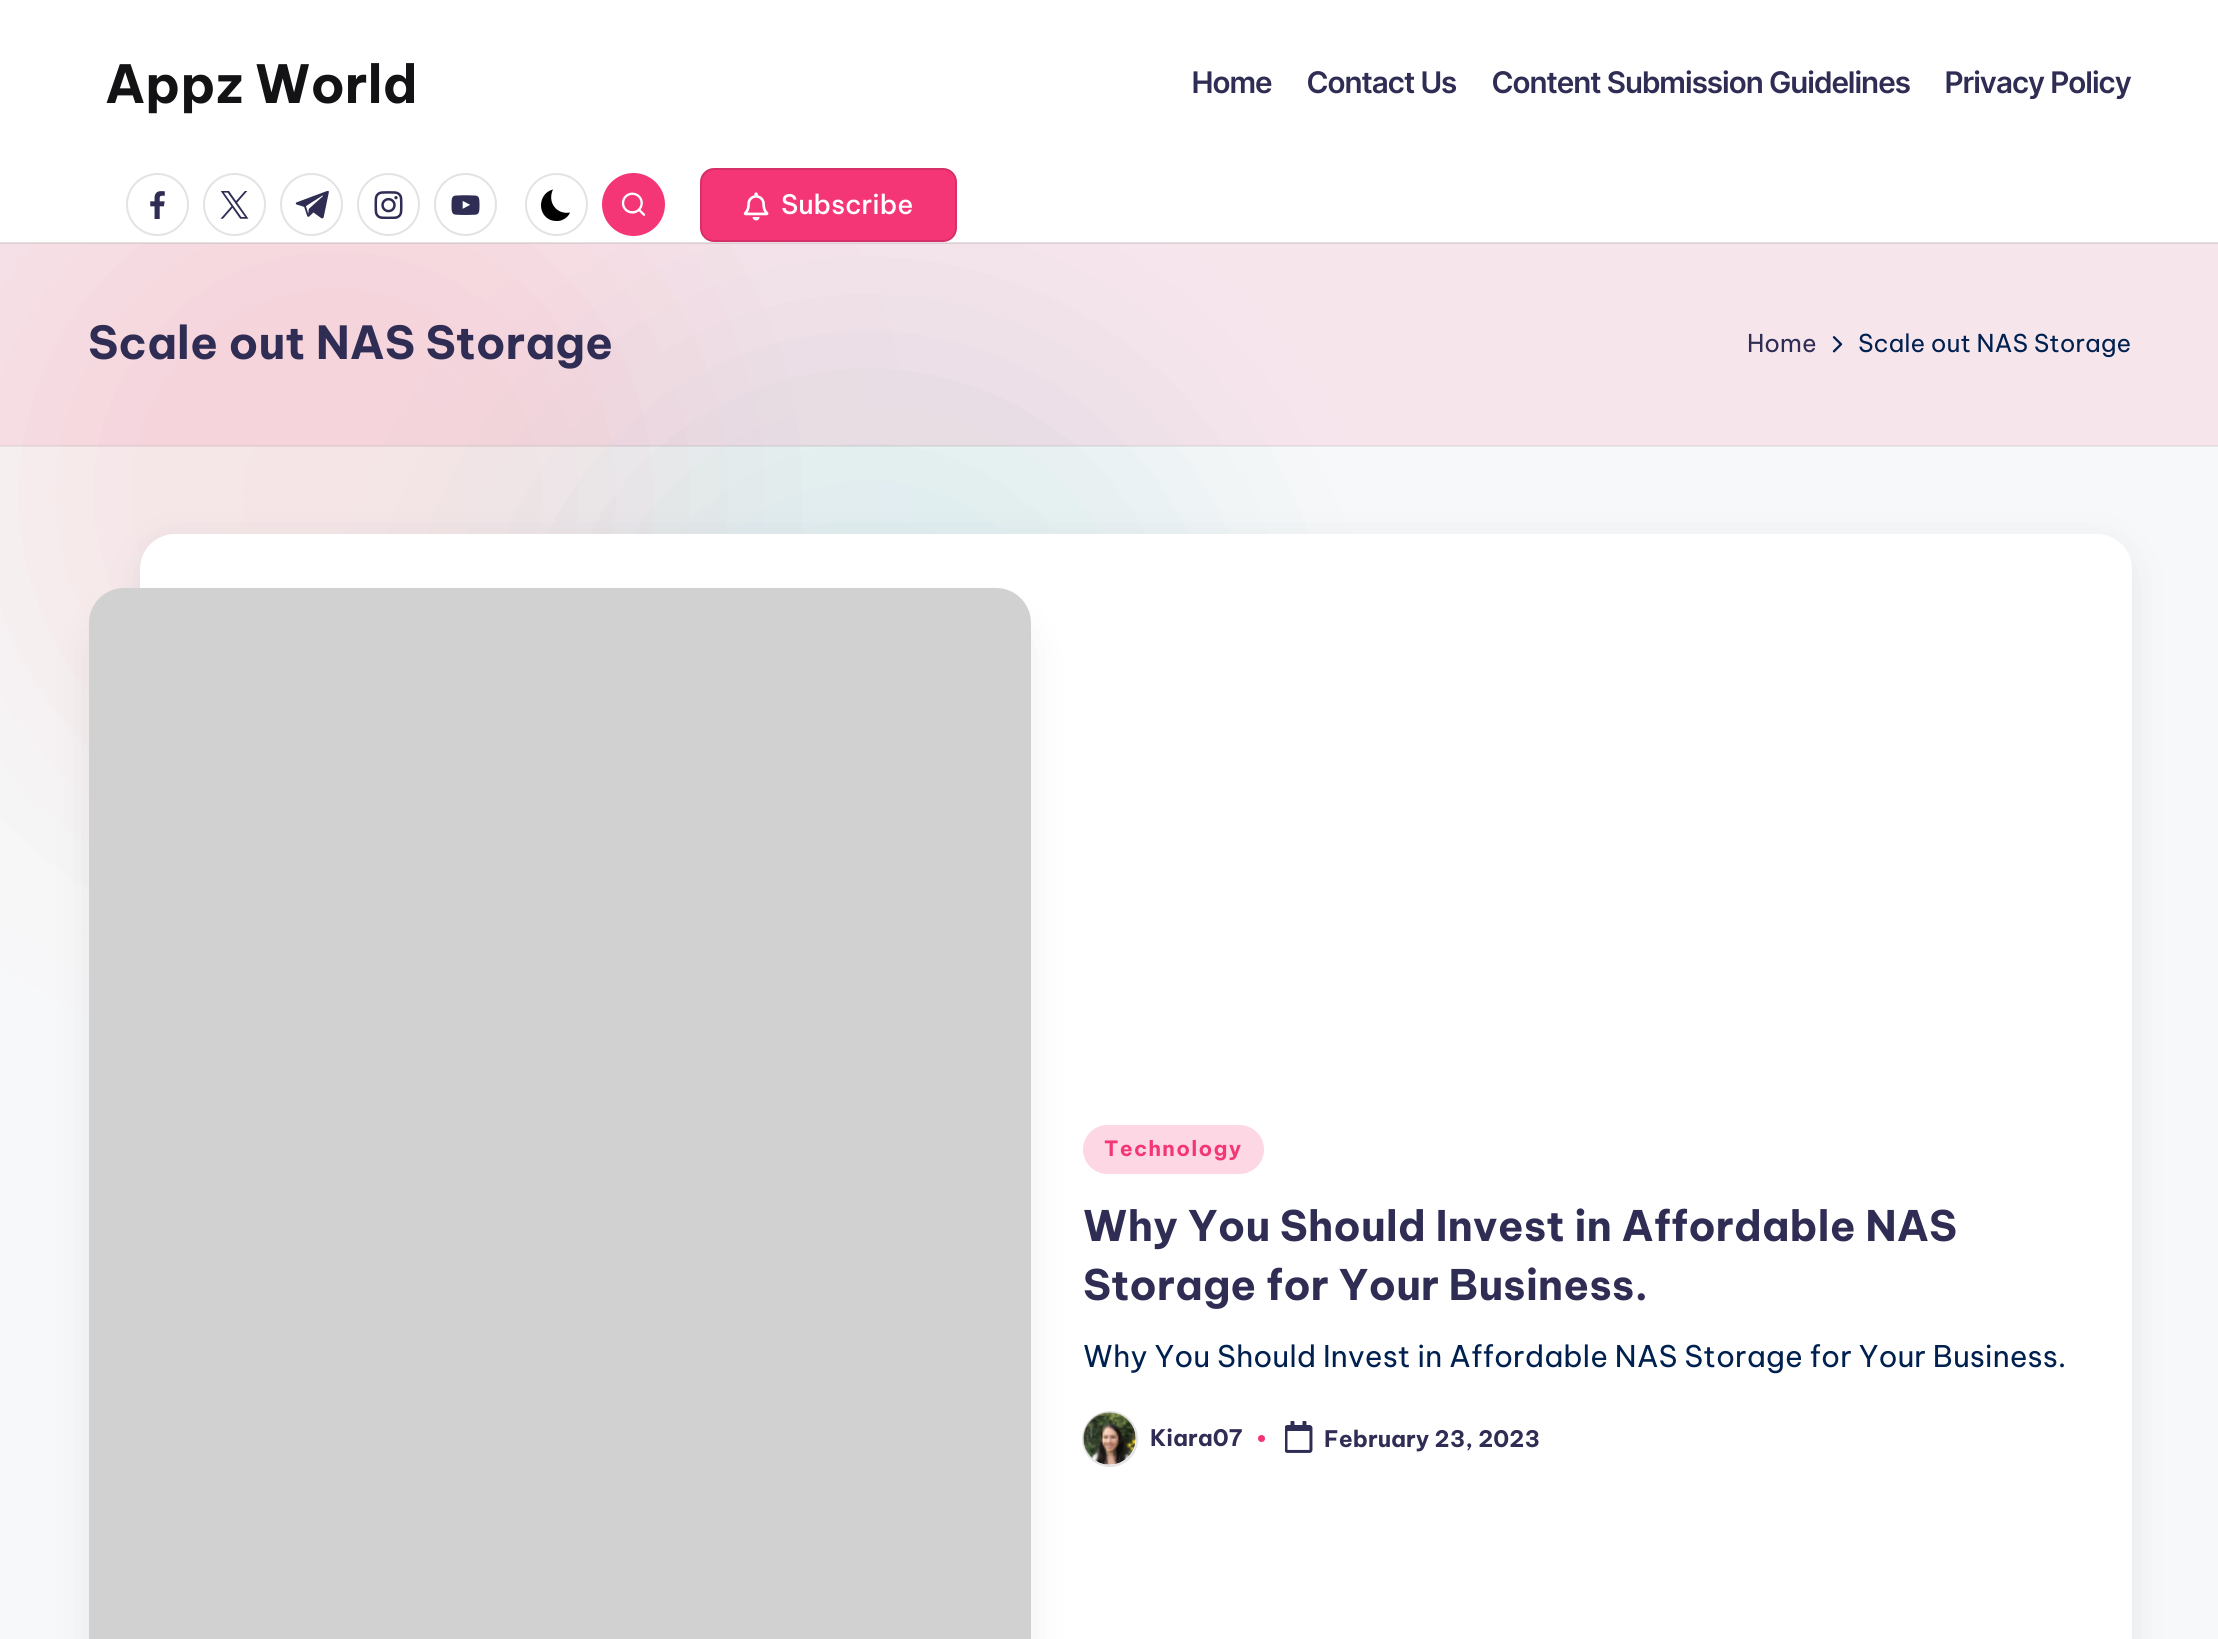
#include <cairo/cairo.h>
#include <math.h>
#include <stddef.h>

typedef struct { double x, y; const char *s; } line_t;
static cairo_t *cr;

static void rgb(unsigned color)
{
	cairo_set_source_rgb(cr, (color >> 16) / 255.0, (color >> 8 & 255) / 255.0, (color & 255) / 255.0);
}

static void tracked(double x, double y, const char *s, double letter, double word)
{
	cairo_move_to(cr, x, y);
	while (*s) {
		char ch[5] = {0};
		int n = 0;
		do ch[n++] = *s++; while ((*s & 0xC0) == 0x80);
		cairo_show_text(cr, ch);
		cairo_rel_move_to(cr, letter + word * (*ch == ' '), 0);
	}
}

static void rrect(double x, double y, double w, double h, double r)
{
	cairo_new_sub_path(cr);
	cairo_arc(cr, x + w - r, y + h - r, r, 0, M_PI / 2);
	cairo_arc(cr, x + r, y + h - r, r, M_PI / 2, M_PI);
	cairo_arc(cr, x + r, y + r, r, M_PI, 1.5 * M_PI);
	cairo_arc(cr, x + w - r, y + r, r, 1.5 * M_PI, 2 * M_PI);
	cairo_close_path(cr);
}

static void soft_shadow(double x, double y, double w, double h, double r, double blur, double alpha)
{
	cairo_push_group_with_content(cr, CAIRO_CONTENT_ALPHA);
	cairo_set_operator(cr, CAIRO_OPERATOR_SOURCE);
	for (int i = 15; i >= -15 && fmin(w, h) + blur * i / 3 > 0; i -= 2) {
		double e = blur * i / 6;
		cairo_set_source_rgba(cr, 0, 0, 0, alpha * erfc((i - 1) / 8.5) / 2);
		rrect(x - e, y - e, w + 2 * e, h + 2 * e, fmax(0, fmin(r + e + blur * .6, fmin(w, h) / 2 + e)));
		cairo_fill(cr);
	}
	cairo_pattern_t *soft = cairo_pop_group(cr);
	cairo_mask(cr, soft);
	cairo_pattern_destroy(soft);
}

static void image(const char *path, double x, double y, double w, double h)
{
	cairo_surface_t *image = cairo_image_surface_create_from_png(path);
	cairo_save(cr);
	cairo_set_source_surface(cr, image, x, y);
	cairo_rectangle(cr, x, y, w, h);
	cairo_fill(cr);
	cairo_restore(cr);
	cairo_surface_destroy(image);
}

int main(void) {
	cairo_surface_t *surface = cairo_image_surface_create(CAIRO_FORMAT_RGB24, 2218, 1639);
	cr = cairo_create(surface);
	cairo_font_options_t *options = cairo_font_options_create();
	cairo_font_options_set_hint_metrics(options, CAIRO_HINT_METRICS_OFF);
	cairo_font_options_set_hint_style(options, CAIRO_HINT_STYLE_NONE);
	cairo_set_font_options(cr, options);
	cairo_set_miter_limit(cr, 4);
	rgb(0xf7f8f9);
	cairo_paint(cr);
	rgb(0xf5e5e7);
	soft_shadow(0, 158, 672, 672, 336, 112, 1);
	rgb(0x04868b);
	soft_shadow(532, 350, 672, 672, 336, 112, 0.1);
	rgb(0xffffff);
	cairo_rectangle(cr, 0, 0, 2218, 243);
	cairo_fill(cr);
	cairo_set_source_rgba(cr, 0.725, 0.725, 0.725, 0.4);
	cairo_rectangle(cr, 0, 242, 2218, 2);
	cairo_fill(cr);
	cairo_arc(cr, 157.5, 204.5, 30.5, 0, 2 * M_PI);
	rgb(0xe3e3e3);
	cairo_stroke(cr);
	image("img/1.png", 150, 191, 15, 28);
	cairo_arc(cr, 234.5, 204.5, 30.5, 0, 2 * M_PI);
	cairo_stroke(cr);
	image("img/2.png", 220, 191, 29, 28);
	cairo_arc(cr, 311.5, 204.5, 30.5, 0, 2 * M_PI);
	cairo_stroke(cr);
	image("img/3.png", 295, 191, 34, 28);
	cairo_arc(cr, 388.5, 204.5, 30.5, 0, 2 * M_PI);
	cairo_stroke(cr);
	image("img/4.png", 374, 191, 29, 28);
	cairo_arc(cr, 465.5, 204.5, 30.5, 0, 2 * M_PI);
	cairo_stroke(cr);
	image("img/5.png", 451, 195, 29, 20);
	cairo_arc(cr, 556.5, 204.5, 30.5, 0, 2 * M_PI);
	cairo_stroke(cr);
	rgb(0x000000);
	cairo_new_path(cr);
	cairo_move_to(cr, 570, 212.5);
	cairo_curve_to(cr, 556.5, 215, 547, 202, 553, 189.5);
	cairo_curve_to(cr, 538.5, 193, 536.5, 214, 550.5, 220);
	cairo_curve_to(cr, 553.5, 221, 557.5, 221.5, 561, 220.5);
	cairo_curve_to(cr, 565, 219, 568.5, 216.5, 570, 212.5);
	cairo_close_path(cr);
	cairo_fill(cr);
	rgb(0xf43676);
	cairo_arc(cr, 633.5, 204.5, 31.5, 0, 2 * M_PI);
	cairo_fill(cr);
	image("img/6.png", 621, 192, 25, 24);
	rrect(700, 168, 257, 74, 14);
	cairo_fill(cr);
	rrect(701, 169, 255, 72, 13);
	cairo_set_source_rgba(cr, 0, 0, 0, 0.12);
	cairo_stroke(cr);
	image("img/7.png", 743, 192, 26, 29);
	cairo_set_source_rgba(cr, 0.957, 0.212, 0.463, 0.1);
	cairo_rectangle(cr, 0, 243, 2218, 203);
	cairo_fill(cr);
	cairo_set_source_rgba(cr, 0, 0, 0, 0.06);
	cairo_rectangle(cr, 0, 445, 2218, 2);
	cairo_fill(cr);
	image("img/8.png", 1832, 336, 11, 17);
	rgb(0x454360);
	soft_shadow(140, 543, 1992, 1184, 35, 17.5, 0.1);
	rgb(0xffffff);
	rrect(140, 534, 1992, 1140, 35);
	cairo_fill(cr);
	rgb(0xfdd7e4);
	rrect(1083, 1125, 181, 49, 24.5);
	cairo_fill(cr);
	image("img/9.png", 1083, 1412, 53, 53);
	cairo_arc(cr, 1110, 1439, 27, 0, 2 * M_PI);
	cairo_set_source_rgba(cr, 0.725, 0.725, 0.725, 0.4);
	cairo_stroke(cr);
	rgb(0x000000);
	soft_shadow(110, 637, 900, 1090, 14, 24.5, 0.18);
	rgb(0xd1d1d1);
	rrect(89, 588, 942, 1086, 35);
	cairo_fill(cr);
	rgb(0xf43676);
	cairo_arc(cr, 1261.5, 1438.5, 3.5, 0, 2 * M_PI);
	cairo_fill(cr);
	image("img/10.png", 1285, 1421, 28, 32);
	cairo_select_font_face(cr, "Be Vietnam Pro", CAIRO_FONT_SLANT_NORMAL, CAIRO_FONT_WEIGHT_BOLD);
	cairo_set_font_size(cr, 52.5);
	rgb(0x131315);
	cairo_move_to(cr, 105, 103);
	cairo_show_text(cr, "Appz World");
	cairo_select_font_face(cr, "Inter Tight SemiBold", CAIRO_FONT_SLANT_NORMAL, CAIRO_FONT_WEIGHT_NORMAL);
	cairo_set_font_size(cr, 29.75);
	rgb(0x302d55);
	{
		static const line_t items[] = {
			{1192, 93, "Home"},
			{1307, 93, "Contact Us"},
			{1492, 93, "Content Submission Guidelines"},
			{1945, 93, "Privacy Policy"},
		};
		for (size_t i = 0; i < sizeof items / sizeof *items; i++) {
			cairo_move_to(cr, items[i].x, items[i].y);
			cairo_show_text(cr, items[i].s);
		}
	}
	cairo_select_font_face(cr, "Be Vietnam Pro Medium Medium", CAIRO_FONT_SLANT_NORMAL, CAIRO_FONT_WEIGHT_NORMAL);
	cairo_set_font_size(cr, 26.75);
	rgb(0xffffff);
	cairo_move_to(cr, 781, 214);
	cairo_show_text(cr, "Subscribe");
	cairo_select_font_face(cr, "Be Vietnam Pro", CAIRO_FONT_SLANT_NORMAL, CAIRO_FONT_WEIGHT_BOLD);
	cairo_set_font_size(cr, 45.5);
	rgb(0x302d55);
	cairo_move_to(cr, 88, 359);
	cairo_show_text(cr, "Scale out NAS Storage");
	cairo_select_font_face(cr, "Be Vietnam Pro", CAIRO_FONT_SLANT_NORMAL, CAIRO_FONT_WEIGHT_NORMAL);
	cairo_set_font_size(cr, 24.5);
	cairo_move_to(cr, 1747, 352);
	cairo_show_text(cr, "Home");
	rgb(0x002050);
	cairo_move_to(cr, 1858, 352);
	cairo_show_text(cr, "Scale out NAS Storage");
	cairo_select_font_face(cr, "Be Vietnam Pro", CAIRO_FONT_SLANT_NORMAL, CAIRO_FONT_WEIGHT_BOLD);
	cairo_set_font_size(cr, 21);
	rgb(0xf43676);
	tracked(1104, 1156, "Technology", 1.25, 0);
	cairo_set_font_size(cr, 42);
	rgb(0x302d55);
	cairo_move_to(cr, 1083, 1241);
	cairo_show_text(cr, "Why You Should Invest in Affordable NAS");
	cairo_move_to(cr, 1083, 1300);
	cairo_show_text(cr, "Storage for Your Business.");
	cairo_select_font_face(cr, "Be Vietnam Pro", CAIRO_FONT_SLANT_NORMAL, CAIRO_FONT_WEIGHT_NORMAL);
	cairo_set_font_size(cr, 29.75);
	rgb(0x002050);
	cairo_move_to(cr, 1083, 1367);
	cairo_show_text(cr, "Why You Should Invest in Affordable NAS Storage for Your Business.");
	cairo_select_font_face(cr, "Be Vietnam Pro", CAIRO_FONT_SLANT_NORMAL, CAIRO_FONT_WEIGHT_BOLD);
	cairo_set_font_size(cr, 22.75);
	rgb(0x302d55);
	cairo_move_to(cr, 1150, 1446);
	cairo_show_text(cr, "Kiara07");
	cairo_move_to(cr, 1324, 1447);
	cairo_show_text(cr, "February 23, 2023");
	cairo_surface_write_to_png(surface, "page.png");
	cairo_font_options_destroy(options);
	cairo_destroy(cr);
	cairo_surface_destroy(surface);
	return 0;
}
